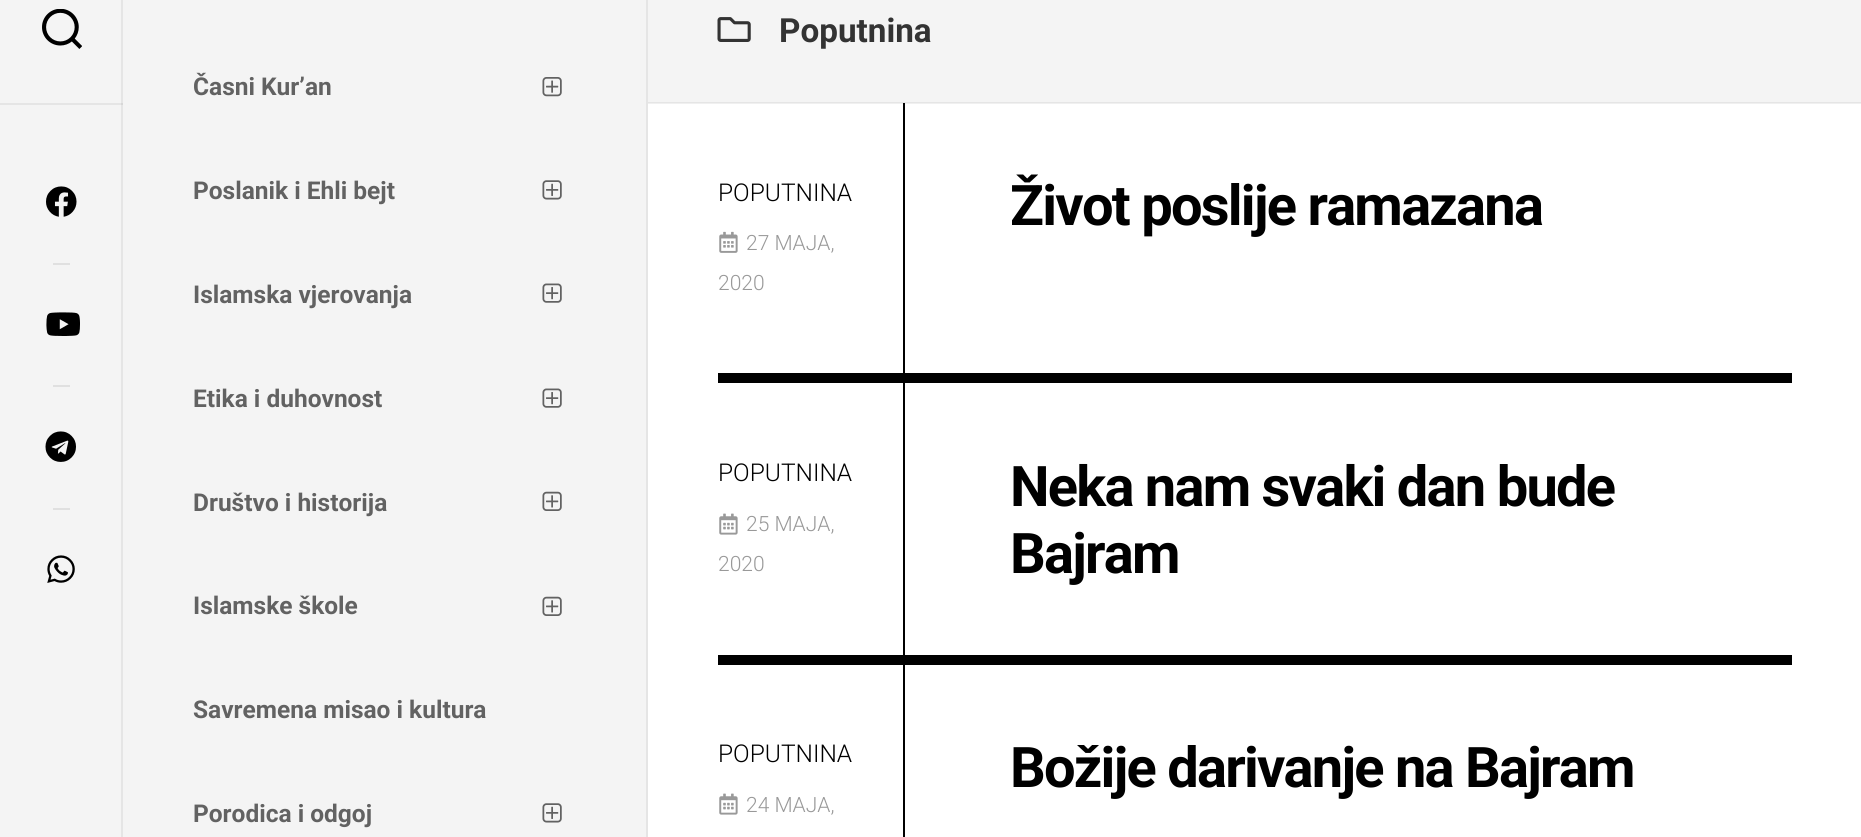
#include <cairo/cairo.h>
#include <math.h>
#include <stddef.h>

typedef struct { double x, y; const char *s; } line_t;
typedef struct { double x, y, w, h; unsigned color; } box_t;
static cairo_t *cr;

static void rgb(unsigned color)
{
	cairo_set_source_rgb(cr, (color >> 16) / 255.0, (color >> 8 & 255) / 255.0, (color & 255) / 255.0);
}

static void tracked(double x, double y, const char *s, double letter, double word)
{
	cairo_move_to(cr, x, y);
	while (*s) {
		char ch[5] = {0};
		int n = 0;
		do ch[n++] = *s++; while ((*s & 0xC0) == 0x80);
		cairo_show_text(cr, ch);
		cairo_rel_move_to(cr, letter + word * (*ch == ' '), 0);
	}
}

static void image(const char *path, double x, double y, double w, double h)
{
	cairo_surface_t *image = cairo_image_surface_create_from_png(path);
	cairo_save(cr);
	cairo_set_source_surface(cr, image, x, y);
	cairo_rectangle(cr, x, y, w, h);
	cairo_fill(cr);
	cairo_restore(cr);
	cairo_surface_destroy(image);
}

int main(void) {
	cairo_surface_t *surface = cairo_image_surface_create(CAIRO_FORMAT_RGB24, 1861, 837);
	cr = cairo_create(surface);
	cairo_font_options_t *options = cairo_font_options_create();
	cairo_font_options_set_hint_metrics(options, CAIRO_HINT_METRICS_OFF);
	cairo_font_options_set_hint_style(options, CAIRO_HINT_STYLE_NONE);
	cairo_set_font_options(cr, options);
	cairo_set_miter_limit(cr, 4);
	rgb(0xffffff);
	cairo_paint(cr);
	{
		static const box_t items[] = {
			{648, 103, 1213, 1, 0xf0f0f0},
			{0, 0, 121, 837, 0xf4f4f4},
			{0, 103, 123, 2, 0xe5e5e5},
			{121, 0, 2, 837, 0xe5e5e5},
			{121, 103, 2, 2, 0xd7d7d7},
		};
		for (size_t i = 0; i < sizeof items / sizeof *items; i++) {
			rgb(items[i].color);
			cairo_rectangle(cr, items[i].x, items[i].y, items[i].w, items[i].h);
			cairo_fill(cr);
		}
	}
	image("img/1.png", 42, 9, 40, 40);
	image("img/2.png", 46, 186, 31, 31);
	rgb(0xe0e0e0);
	cairo_rectangle(cr, 53, 263, 17, 2);
	cairo_fill(cr);
	image("img/3.png", 46, 312, 34, 24);
	cairo_rectangle(cr, 53, 385, 17, 2);
	cairo_fill(cr);
	image("img/4.png", 45, 431, 31, 31);
	cairo_rectangle(cr, 53, 508, 17, 2);
	cairo_fill(cr);
	image("img/5.png", 47, 555, 28, 28);
	rgb(0xf4f4f4);
	cairo_rectangle(cr, 123, 0, 523, 837);
	cairo_fill(cr);
	rgb(0xe5e5e5);
	cairo_rectangle(cr, 646, 0, 2, 837);
	cairo_fill(cr);
	image("img/6.png", 542, 77, 20, 20);
	image("img/7.png", 542, 180, 20, 20);
	image("img/8.png", 542, 283, 20, 20);
	image("img/8.png", 542, 388, 20, 20);
	image("img/9.png", 542, 491, 20, 20);
	image("img/9.png", 542, 596, 20, 20);
	image("img/7.png", 542, 803, 20, 20);
	rgb(0xf4f4f4);
	cairo_rectangle(cr, 648, 0, 1213, 102);
	cairo_fill(cr);
	rgb(0xe5e5e5);
	cairo_rectangle(cr, 648, 102, 1213, 1);
	cairo_fill(cr);
	image("img/10.png", 717, 17, 34, 25);
	rgb(0x000000);
	cairo_rectangle(cr, 718, 373, 1074, 10);
	cairo_fill(cr);
	cairo_rectangle(cr, 903, 103, 2, 270);
	cairo_fill(cr);
	image("img/11.png", 719, 231, 19, 22);
	cairo_rectangle(cr, 718, 655, 1074, 10);
	cairo_fill(cr);
	cairo_rectangle(cr, 903, 383, 2, 272);
	cairo_fill(cr);
	image("img/12.png", 719, 513, 19, 22);
	cairo_rectangle(cr, 903, 665, 2, 172);
	cairo_fill(cr);
	image("img/12.png", 719, 793, 19, 22);
	cairo_select_font_face(cr, "Roboto", CAIRO_FONT_SLANT_NORMAL, CAIRO_FONT_WEIGHT_BOLD);
	cairo_set_font_size(cr, 24.5);
	rgb(0x626262);
	{
		static const line_t items[] = {
			{193, 95, "Časni Kur’an"},
			{193, 199, "Poslanik i Ehli bejt"},
			{193, 303, "Islamska vjerovanja"},
			{193, 407, "Etika i duhovnost"},
			{193, 511, "Društvo i historija"},
			{193, 614, "Islamske škole"},
			{193, 718, "Savremena misao i kultura"},
			{193, 822, "Porodica i odgoj"},
		};
		for (size_t i = 0; i < sizeof items / sizeof *items; i++) {
			cairo_move_to(cr, items[i].x, items[i].y);
			cairo_show_text(cr, items[i].s);
		}
	}
	cairo_set_font_size(cr, 33.25);
	rgb(0x333333);
	cairo_move_to(cr, 779, 42);
	cairo_show_text(cr, "Poputnina");
	cairo_select_font_face(cr, "Roboto Light", CAIRO_FONT_SLANT_NORMAL, CAIRO_FONT_WEIGHT_NORMAL);
	cairo_set_font_size(cr, 24.5);
	rgb(0x000000);
	cairo_move_to(cr, 718, 201);
	cairo_show_text(cr, "POPUTNINA");
	cairo_set_font_size(cr, 21);
	rgb(0x999999);
	cairo_move_to(cr, 746, 250);
	cairo_show_text(cr, "27 MAJA,");
	cairo_move_to(cr, 718, 290);
	cairo_show_text(cr, "2020");
	cairo_select_font_face(cr, "Roboto", CAIRO_FONT_SLANT_NORMAL, CAIRO_FONT_WEIGHT_BOLD);
	cairo_set_font_size(cr, 56);
	rgb(0x000000);
	tracked(1010, 225, "Život poslije ramazana", -1.75, 0);
	cairo_select_font_face(cr, "Roboto Light", CAIRO_FONT_SLANT_NORMAL, CAIRO_FONT_WEIGHT_NORMAL);
	cairo_set_font_size(cr, 24.5);
	cairo_move_to(cr, 718, 481);
	cairo_show_text(cr, "POPUTNINA");
	cairo_set_font_size(cr, 21);
	rgb(0x999999);
	cairo_move_to(cr, 746, 531);
	cairo_show_text(cr, "25 MAJA,");
	cairo_move_to(cr, 718, 571);
	cairo_show_text(cr, "2020");
	cairo_select_font_face(cr, "Roboto", CAIRO_FONT_SLANT_NORMAL, CAIRO_FONT_WEIGHT_BOLD);
	cairo_set_font_size(cr, 56);
	rgb(0x000000);
	tracked(1010, 506, "Neka nam svaki dan bude", -1.75, 0);
	tracked(1010, 573, "Bajram", -1.75, 0);
	cairo_select_font_face(cr, "Roboto Light", CAIRO_FONT_SLANT_NORMAL, CAIRO_FONT_WEIGHT_NORMAL);
	cairo_set_font_size(cr, 24.5);
	cairo_move_to(cr, 718, 762);
	cairo_show_text(cr, "POPUTNINA");
	cairo_set_font_size(cr, 21);
	rgb(0x999999);
	cairo_move_to(cr, 746, 812);
	cairo_show_text(cr, "24 MAJA,");
	cairo_select_font_face(cr, "Roboto", CAIRO_FONT_SLANT_NORMAL, CAIRO_FONT_WEIGHT_BOLD);
	cairo_set_font_size(cr, 56);
	rgb(0x000000);
	tracked(1010, 787, "Božije darivanje na Bajram", -1.75, 0);
	cairo_surface_write_to_png(surface, "page.png");
	cairo_font_options_destroy(options);
	cairo_destroy(cr);
	cairo_surface_destroy(surface);
	return 0;
}
